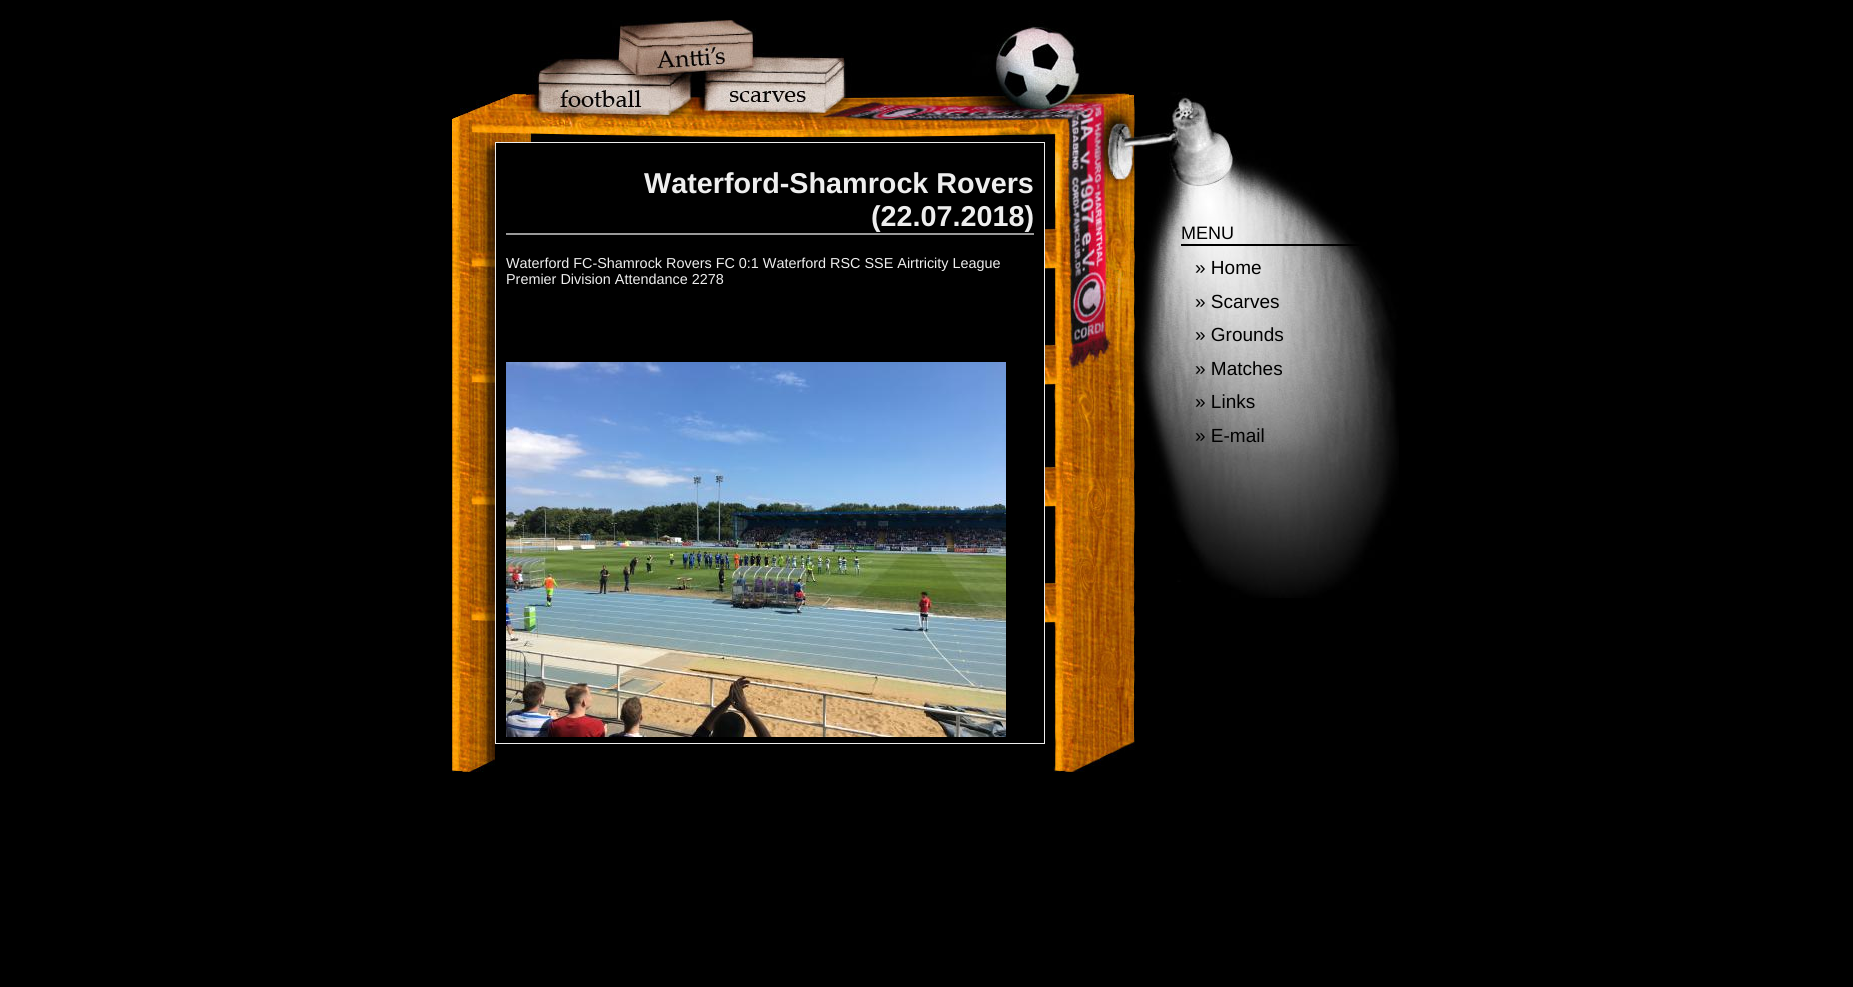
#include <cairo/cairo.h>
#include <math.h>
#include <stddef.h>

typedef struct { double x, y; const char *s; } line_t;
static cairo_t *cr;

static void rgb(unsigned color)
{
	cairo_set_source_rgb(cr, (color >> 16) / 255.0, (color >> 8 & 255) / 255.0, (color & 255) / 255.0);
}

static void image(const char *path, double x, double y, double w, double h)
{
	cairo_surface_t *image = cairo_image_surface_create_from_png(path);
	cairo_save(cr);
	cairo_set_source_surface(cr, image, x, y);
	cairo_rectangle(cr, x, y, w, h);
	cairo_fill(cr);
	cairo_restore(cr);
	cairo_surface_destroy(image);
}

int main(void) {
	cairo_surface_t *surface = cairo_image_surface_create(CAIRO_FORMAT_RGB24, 1853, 987);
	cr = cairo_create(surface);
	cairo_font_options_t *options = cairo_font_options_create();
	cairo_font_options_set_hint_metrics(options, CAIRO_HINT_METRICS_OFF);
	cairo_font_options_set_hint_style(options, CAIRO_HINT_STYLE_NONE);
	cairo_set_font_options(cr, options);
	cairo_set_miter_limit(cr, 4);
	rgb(0x000000);
	cairo_paint(cr);
	image("img/1.png", 452, 20, 683, 122);
	image("img/2.png", 1135, 92, 95, 50);
	image("img/3.png", 452, 142, 43, 630);
	cairo_rectangle(cr, 495.5, 142.5, 549, 601);
	rgb(0xeeeeee);
	cairo_set_line_width(cr, 1);
	cairo_stroke(cr);
	rgb(0x999999);
	cairo_rectangle(cr, 506, 233, 528, 2);
	cairo_fill(cr);
	image("img/4.png", 506, 362, 500, 375);
	image("img/5.png", 1045, 142, 90, 630);
	image("img/6.png", 1135, 142, 264, 456);
	rgb(0x000000);
	cairo_rectangle(cr, 1181, 244, 178, 2);
	cairo_fill(cr);
	cairo_select_font_face(cr, "Liberation Sans", CAIRO_FONT_SLANT_NORMAL, CAIRO_FONT_WEIGHT_BOLD);
	cairo_set_font_size(cr, 28.75);
	rgb(0xeeeeee);
	cairo_move_to(cr, 644, 193);
	cairo_show_text(cr, "Waterford-Shamrock Rovers");
	cairo_move_to(cr, 871, 226);
	cairo_show_text(cr, "(22.07.2018)");
	cairo_select_font_face(cr, "Liberation Sans", CAIRO_FONT_SLANT_NORMAL, CAIRO_FONT_WEIGHT_NORMAL);
	cairo_set_font_size(cr, 14.4);
	cairo_move_to(cr, 506, 268);
	cairo_show_text(cr, "Waterford FC-Shamrock Rovers FC 0:1 Waterford RSC SSE Airtricity League");
	cairo_move_to(cr, 506, 284);
	cairo_show_text(cr, "Premier Division Attendance 2278");
	cairo_set_font_size(cr, 18);
	rgb(0x000000);
	cairo_move_to(cr, 1181, 239);
	cairo_show_text(cr, "MENU");
	cairo_set_font_size(cr, 19);
	{
		static const line_t items[] = {
			{1195, 274, "» Home"},
			{1195, 308, "» Scarves"},
			{1195, 341, "» Grounds"},
			{1195, 375, "» Matches"},
			{1195, 408, "» Links"},
			{1195, 442, "» E-mail"},
		};
		for (size_t i = 0; i < sizeof items / sizeof *items; i++) {
			cairo_move_to(cr, items[i].x, items[i].y);
			cairo_show_text(cr, items[i].s);
		}
	}
	cairo_surface_write_to_png(surface, "page.png");
	cairo_font_options_destroy(options);
	cairo_destroy(cr);
	cairo_surface_destroy(surface);
	return 0;
}
